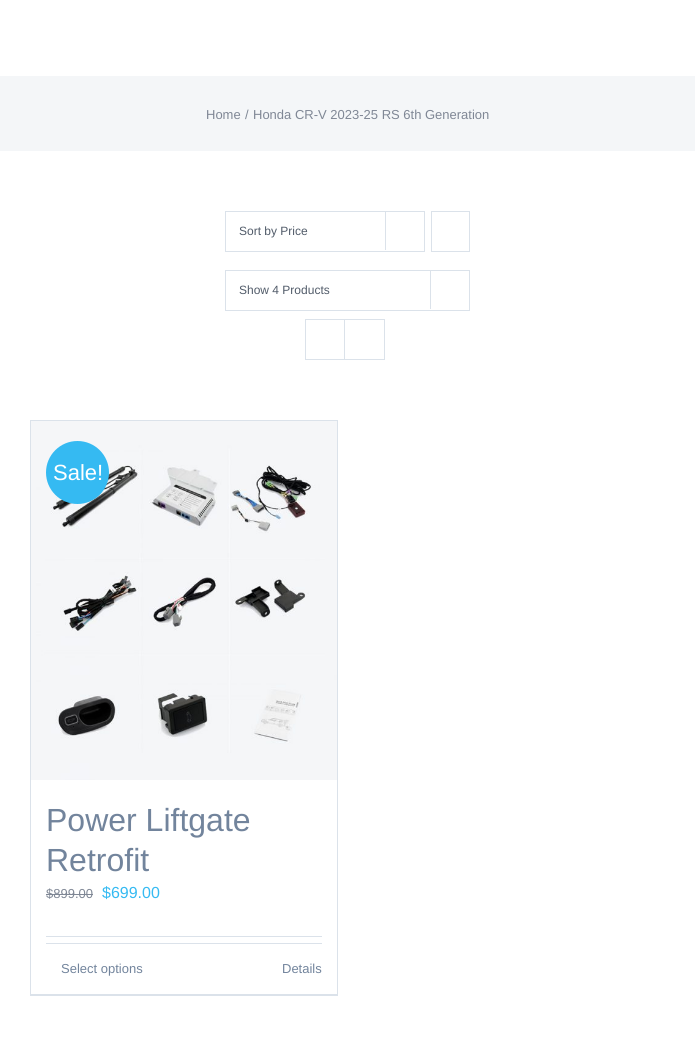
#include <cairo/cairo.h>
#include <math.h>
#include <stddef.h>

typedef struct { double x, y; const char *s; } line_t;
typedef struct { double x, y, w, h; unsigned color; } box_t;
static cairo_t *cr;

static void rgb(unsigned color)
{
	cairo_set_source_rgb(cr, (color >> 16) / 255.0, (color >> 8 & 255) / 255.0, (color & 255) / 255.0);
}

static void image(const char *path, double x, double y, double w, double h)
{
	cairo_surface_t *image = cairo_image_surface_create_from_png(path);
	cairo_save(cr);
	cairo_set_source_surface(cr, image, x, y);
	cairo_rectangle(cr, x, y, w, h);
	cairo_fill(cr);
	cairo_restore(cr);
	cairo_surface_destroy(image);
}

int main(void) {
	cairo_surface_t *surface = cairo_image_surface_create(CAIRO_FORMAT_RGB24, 695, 1055);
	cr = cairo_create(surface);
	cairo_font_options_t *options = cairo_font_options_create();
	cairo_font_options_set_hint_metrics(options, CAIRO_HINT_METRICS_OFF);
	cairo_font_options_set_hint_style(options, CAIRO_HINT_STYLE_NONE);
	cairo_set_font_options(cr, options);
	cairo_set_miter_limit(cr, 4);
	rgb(0xffffff);
	cairo_paint(cr);
	rgb(0xf4f6f8);
	cairo_rectangle(cr, 0, 76, 695, 75);
	cairo_fill(cr);
	cairo_rectangle(cr, 225.5, 211.5, 199, 40);
	rgb(0xdbe2ea);
	cairo_set_line_width(cr, 1);
	cairo_stroke(cr);
	cairo_rectangle(cr, 385, 211, 1, 39);
	cairo_fill(cr);
	cairo_rectangle(cr, 431.5, 211.5, 38, 40);
	cairo_stroke(cr);
	cairo_rectangle(cr, 225.5, 270.5, 244, 40);
	cairo_stroke(cr);
	cairo_rectangle(cr, 430, 270, 1, 39);
	cairo_fill(cr);
	cairo_rectangle(cr, 305.5, 319.5, 79, 40);
	cairo_stroke(cr);
	{
		static const box_t items[] = {
			{344, 320, 1, 39, 0xdbe2ea},
			{30, 420, 308, 1, 0xdbe2ea},
			{337, 420, 1, 576, 0xdbe2ea},
			{30, 994, 308, 2, 0xdbe2ea},
			{30, 420, 1, 576, 0xdbe2ea},
		};
		for (size_t i = 0; i < sizeof items / sizeof *items; i++) {
			rgb(items[i].color);
			cairo_rectangle(cr, items[i].x, items[i].y, items[i].w, items[i].h);
			cairo_fill(cr);
		}
	}
	image("img/1.png", 31, 421, 306, 359);
	rgb(0x35baf2);
	cairo_arc(cr, 77.5, 472.5, 31.5, 0, 2 * M_PI);
	cairo_fill(cr);
	{
		static const box_t items[] = {
			{46, 894, 47, 1, 0x7f8795},
			{46, 936, 276, 1, 0xdbe2ea},
			{46, 943, 276, 1, 0xdbe2ea},
		};
		for (size_t i = 0; i < sizeof items / sizeof *items; i++) {
			rgb(items[i].color);
			cairo_rectangle(cr, items[i].x, items[i].y, items[i].w, items[i].h);
			cairo_fill(cr);
		}
	}
	cairo_select_font_face(cr, "Liberation Sans", CAIRO_FONT_SLANT_NORMAL, CAIRO_FONT_WEIGHT_NORMAL);
	cairo_set_font_size(cr, 13);
	rgb(0x7f8795);
	{
		static const line_t items[] = {
			{206, 119, "Home"},
			{245, 119, "/"},
			{253, 119, "Honda CR-V 2023-25 RS 6th Generation"},
		};
		for (size_t i = 0; i < sizeof items / sizeof *items; i++) {
			cairo_move_to(cr, items[i].x, items[i].y);
			cairo_show_text(cr, items[i].s);
		}
	}
	cairo_set_font_size(cr, 12);
	rgb(0x515b69);
	cairo_move_to(cr, 239, 235);
	cairo_show_text(cr, "Sort by Price");
	cairo_move_to(cr, 239, 294);
	cairo_show_text(cr, "Show 4 Products");
	cairo_set_font_size(cr, 22);
	rgb(0xffffff);
	cairo_move_to(cr, 53, 480);
	cairo_show_text(cr, "Sale!");
	cairo_set_font_size(cr, 32);
	rgb(0x72849c);
	cairo_move_to(cr, 46, 831);
	cairo_show_text(cr, "Power Liftgate");
	cairo_move_to(cr, 46, 871);
	cairo_show_text(cr, "Retrofit");
	cairo_set_font_size(cr, 13);
	rgb(0x7f8795);
	cairo_move_to(cr, 46, 898);
	cairo_show_text(cr, "$899.00");
	cairo_set_font_size(cr, 16);
	rgb(0x35baf2);
	cairo_move_to(cr, 102, 898);
	cairo_show_text(cr, "$699.00");
	cairo_set_font_size(cr, 13);
	rgb(0x72849c);
	cairo_move_to(cr, 61, 973);
	cairo_show_text(cr, "Select options");
	cairo_move_to(cr, 282, 973);
	cairo_show_text(cr, "Details");
	cairo_surface_write_to_png(surface, "page.png");
	cairo_font_options_destroy(options);
	cairo_destroy(cr);
	cairo_surface_destroy(surface);
	return 0;
}
